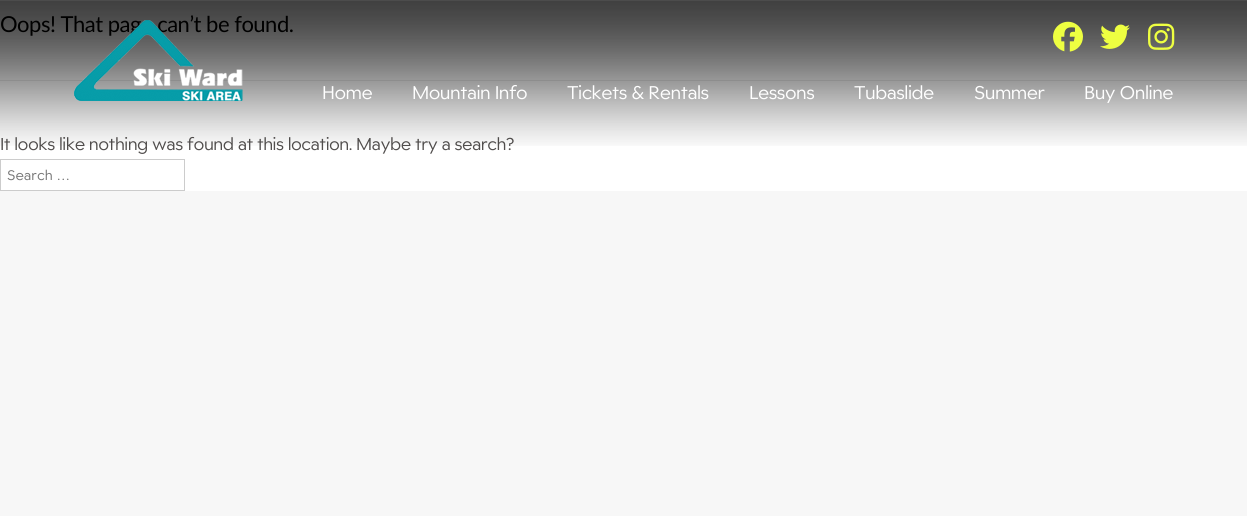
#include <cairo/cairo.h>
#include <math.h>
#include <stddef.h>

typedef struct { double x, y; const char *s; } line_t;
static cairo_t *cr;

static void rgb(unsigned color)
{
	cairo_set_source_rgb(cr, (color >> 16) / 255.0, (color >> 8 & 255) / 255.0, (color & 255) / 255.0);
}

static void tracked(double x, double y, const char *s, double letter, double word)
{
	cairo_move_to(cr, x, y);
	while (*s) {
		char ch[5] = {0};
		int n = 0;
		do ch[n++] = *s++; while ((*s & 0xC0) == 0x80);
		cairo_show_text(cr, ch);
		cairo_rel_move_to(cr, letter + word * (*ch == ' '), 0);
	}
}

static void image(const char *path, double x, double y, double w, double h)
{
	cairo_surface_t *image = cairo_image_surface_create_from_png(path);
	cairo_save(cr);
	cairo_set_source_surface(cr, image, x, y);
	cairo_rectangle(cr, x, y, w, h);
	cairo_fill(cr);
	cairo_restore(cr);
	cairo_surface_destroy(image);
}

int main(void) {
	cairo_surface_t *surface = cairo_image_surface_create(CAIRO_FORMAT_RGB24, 1247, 516);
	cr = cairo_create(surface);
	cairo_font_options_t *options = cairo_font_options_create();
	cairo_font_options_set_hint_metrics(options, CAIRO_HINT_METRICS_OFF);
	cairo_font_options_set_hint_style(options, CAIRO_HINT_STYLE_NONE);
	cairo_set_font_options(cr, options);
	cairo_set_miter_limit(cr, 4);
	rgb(0xffffff);
	cairo_paint(cr);
	rgb(0xededed);
	cairo_rectangle(cr, 0, 80, 1247, 1);
	cairo_fill(cr);
	cairo_rectangle(cr, 0.5, 159.5, 184, 31);
	rgb(0xcccccc);
	cairo_set_line_width(cr, 1);
	cairo_stroke(cr);
	rgb(0xf7f7f7);
	cairo_rectangle(cr, 0, 191, 1247, 325);
	cairo_fill(cr);
	cairo_select_font_face(cr, "Lato", CAIRO_FONT_SLANT_NORMAL, CAIRO_FONT_WEIGHT_NORMAL);
	cairo_set_font_size(cr, 22);
	rgb(0x000000);
	tracked(0, 32, "Oops! That page can’t be found.", -0.5, 0);
	cairo_select_font_face(cr, "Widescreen", CAIRO_FONT_SLANT_NORMAL, CAIRO_FONT_WEIGHT_NORMAL);
	cairo_set_font_size(cr, 16.8);
	rgb(0x524f4e);
	tracked(0, 150, "It looks like nothing was found at this location. Maybe try a search?", -0.5, 0);
	cairo_set_font_size(cr, 13.5);
	rgb(0x757575);
	cairo_move_to(cr, 7, 180);
	cairo_show_text(cr, "Search …");
	image("img/1.png", 0, 0, 1247, 146);
	image("img/2.png", 74, 20, 169, 81);
	image("img/3.png", 1053, 21, 30, 31);
	image("img/4.png", 1100, 24, 30, 25);
	image("img/5.png", 1148, 23, 27, 27);
	cairo_set_font_size(cr, 18);
	rgb(0xffffff);
	{
		static const line_t items[] = {
			{322, 99, "Home"},
			{412, 99, "Mountain Info"},
			{567, 99, "Tickets & Rentals"},
			{749, 99, "Lessons"},
			{854, 99, "Tubaslide"},
			{974, 99, "Summer"},
			{1084, 99, "Buy Online"},
		};
		for (size_t i = 0; i < sizeof items / sizeof *items; i++) {
			tracked(items[i].x, items[i].y, items[i].s, -0.5, 0);
		}
	}
	cairo_surface_write_to_png(surface, "page.png");
	cairo_font_options_destroy(options);
	cairo_destroy(cr);
	cairo_surface_destroy(surface);
	return 0;
}
